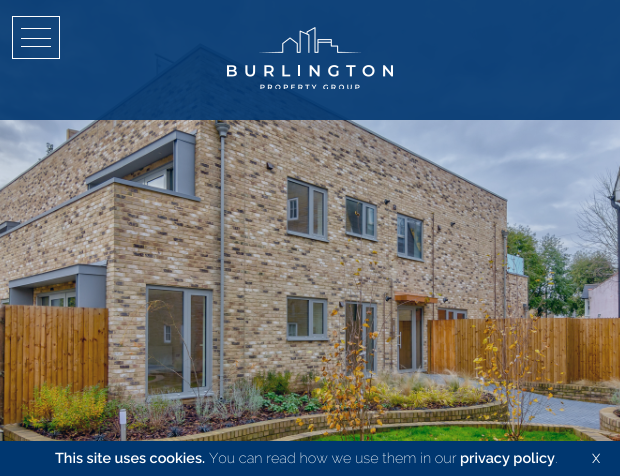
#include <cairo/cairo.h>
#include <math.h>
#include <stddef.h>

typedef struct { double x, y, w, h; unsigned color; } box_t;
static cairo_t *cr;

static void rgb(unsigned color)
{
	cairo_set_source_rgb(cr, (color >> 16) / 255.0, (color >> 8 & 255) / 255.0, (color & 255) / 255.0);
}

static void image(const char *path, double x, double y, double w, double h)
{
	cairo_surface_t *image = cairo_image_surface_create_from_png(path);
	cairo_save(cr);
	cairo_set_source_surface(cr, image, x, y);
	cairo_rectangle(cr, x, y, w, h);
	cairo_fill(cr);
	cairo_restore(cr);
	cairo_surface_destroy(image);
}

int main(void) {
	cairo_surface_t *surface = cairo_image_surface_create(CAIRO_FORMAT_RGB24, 620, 476);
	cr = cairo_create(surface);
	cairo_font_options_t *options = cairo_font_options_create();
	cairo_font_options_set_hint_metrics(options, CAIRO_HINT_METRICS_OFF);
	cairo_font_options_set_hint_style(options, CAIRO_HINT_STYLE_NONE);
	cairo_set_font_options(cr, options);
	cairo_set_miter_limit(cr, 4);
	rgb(0xffffff);
	cairo_paint(cr);
	image("img/1.png", 0, 0, 620, 441);
	cairo_set_source_rgba(cr, 0, 0.216, 0.439, 0.9);
	cairo_rectangle(cr, 0, 0, 620, 120);
	cairo_fill(cr);
	image("img/2.png", 227, 27, 166, 62);
	cairo_rectangle(cr, 12.5, 16.5, 47, 42);
	rgb(0xffffff);
	cairo_set_line_width(cr, 1);
	cairo_stroke(cr);
	{
		static const box_t items[] = {
			{21, 28, 30, 1, 0xffffff},
			{21, 46, 30, 1, 0xffffff},
			{21, 38, 30, 1, 0xffffff},
			{0, 441, 620, 35, 0x003770},
		};
		for (size_t i = 0; i < sizeof items / sizeof *items; i++) {
			rgb(items[i].color);
			cairo_rectangle(cr, items[i].x, items[i].y, items[i].w, items[i].h);
			cairo_fill(cr);
		}
	}
	cairo_select_font_face(cr, "Raleway SemiBold", CAIRO_FONT_SLANT_NORMAL, CAIRO_FONT_WEIGHT_NORMAL);
	cairo_set_font_size(cr, 14.4);
	rgb(0xffffff);
	cairo_move_to(cr, 55, 463);
	cairo_show_text(cr, "This site uses cookies.");
	cairo_select_font_face(cr, "Raleway ExtraLight", CAIRO_FONT_SLANT_NORMAL, CAIRO_FONT_WEIGHT_NORMAL);
	cairo_move_to(cr, 209, 463);
	cairo_show_text(cr, "You can read how we use them in our");
	cairo_select_font_face(cr, "Raleway SemiBold", CAIRO_FONT_SLANT_NORMAL, CAIRO_FONT_WEIGHT_NORMAL);
	cairo_move_to(cr, 460, 463);
	cairo_show_text(cr, "privacy policy");
	cairo_select_font_face(cr, "Raleway ExtraLight", CAIRO_FONT_SLANT_NORMAL, CAIRO_FONT_WEIGHT_NORMAL);
	cairo_move_to(cr, 555, 463);
	cairo_show_text(cr, ".");
	cairo_select_font_face(cr, "Raleway", CAIRO_FONT_SLANT_NORMAL, CAIRO_FONT_WEIGHT_NORMAL);
	cairo_set_font_size(cr, 13);
	cairo_move_to(cr, 592, 463);
	cairo_show_text(cr, "X");
	cairo_surface_write_to_png(surface, "page.png");
	cairo_font_options_destroy(options);
	cairo_destroy(cr);
	cairo_surface_destroy(surface);
	return 0;
}
